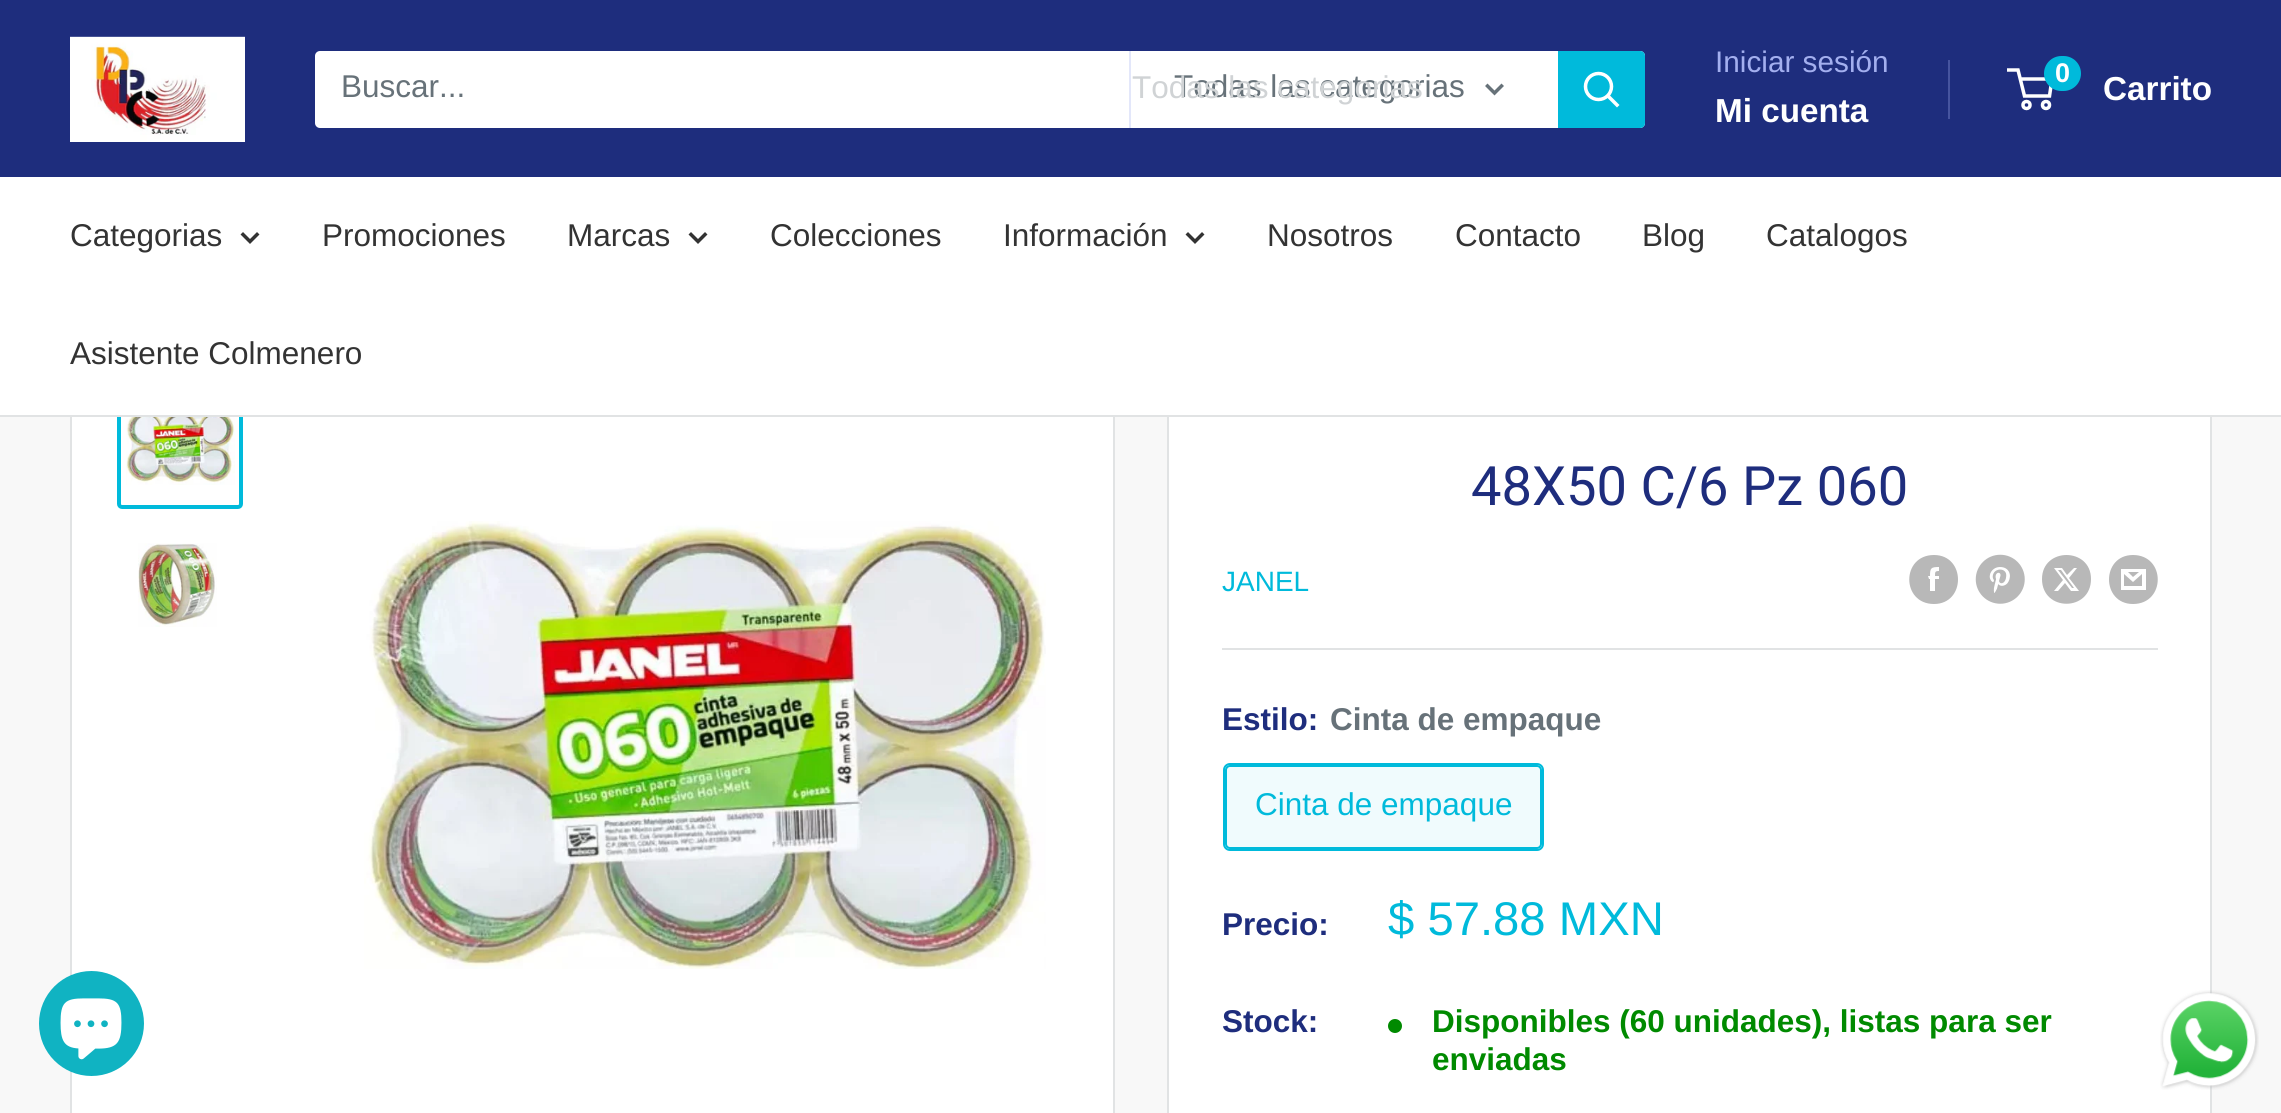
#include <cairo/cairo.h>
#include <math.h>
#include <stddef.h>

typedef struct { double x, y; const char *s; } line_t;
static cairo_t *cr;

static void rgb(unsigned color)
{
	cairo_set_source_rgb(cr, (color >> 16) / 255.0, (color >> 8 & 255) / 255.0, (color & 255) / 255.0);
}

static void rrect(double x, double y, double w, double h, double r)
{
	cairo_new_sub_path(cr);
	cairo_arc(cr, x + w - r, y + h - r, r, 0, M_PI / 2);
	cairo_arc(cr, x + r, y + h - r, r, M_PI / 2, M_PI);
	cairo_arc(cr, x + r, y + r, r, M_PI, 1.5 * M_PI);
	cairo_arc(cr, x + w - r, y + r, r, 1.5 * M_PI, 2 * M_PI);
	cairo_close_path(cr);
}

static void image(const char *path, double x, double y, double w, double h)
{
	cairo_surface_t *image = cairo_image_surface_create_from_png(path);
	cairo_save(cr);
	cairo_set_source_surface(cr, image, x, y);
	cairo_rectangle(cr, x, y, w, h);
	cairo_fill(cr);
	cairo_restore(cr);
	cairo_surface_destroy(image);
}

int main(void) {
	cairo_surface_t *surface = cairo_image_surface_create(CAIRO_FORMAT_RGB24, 2281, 1113);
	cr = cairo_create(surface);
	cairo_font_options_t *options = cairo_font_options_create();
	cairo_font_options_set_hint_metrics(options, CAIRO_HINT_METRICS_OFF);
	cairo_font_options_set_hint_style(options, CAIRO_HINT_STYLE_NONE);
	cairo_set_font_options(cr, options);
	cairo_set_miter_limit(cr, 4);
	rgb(0xf8f8f8);
	cairo_paint(cr);
	rgb(0x1e2d7d);
	cairo_rectangle(cr, 0, 0, 2281, 177);
	cairo_fill(cr);
	image("img/1.png", 70, 36, 175, 106);
	rgb(0xffffff);
	rrect(315, 51, 1330, 77, 5);
	cairo_fill(cr);
	rgb(0xe3e7fa);
	cairo_rectangle(cr, 1129, 51, 2, 77);
	cairo_fill(cr);
	cairo_new_path(cr);
	cairo_move_to(cr, 1501.5, 86);
	cairo_line_to(cr, 1494.5, 93);
	cairo_line_to(cr, 1487.5, 86);
	rgb(0x677279);
	cairo_set_line_width(cr, 3.5);
	cairo_set_line_cap(cr, CAIRO_LINE_CAP_SQUARE);
	cairo_stroke(cr);
	rgb(0x00badb);
	cairo_new_path(cr);
	cairo_move_to(cr, 1558, 51);
	cairo_line_to(cr, 1640, 51);
	cairo_curve_to(cr, 1643, 51, 1645, 53, 1645, 56);
	cairo_line_to(cr, 1645, 123);
	cairo_curve_to(cr, 1645, 126, 1643, 128, 1640, 128);
	cairo_line_to(cr, 1558, 128);
	cairo_close_path(cr);
	cairo_fill(cr);
	cairo_new_path(cr);
	cairo_move_to(cr, 1617, 105);
	cairo_line_to(cr, 1608, 96);
	rgb(0xffffff);
	cairo_stroke(cr);
	cairo_arc(cr, 1598.5, 86.5, 13, 0, 2 * M_PI);
	cairo_set_line_cap(cr, CAIRO_LINE_CAP_BUTT);
	cairo_stroke(cr);
	rgb(0x46549f);
	cairo_rectangle(cr, 1948, 60, 2, 59);
	cairo_fill(cr);
	cairo_arc(cr, 2026.5, 105, 3.5, 0, 2 * M_PI);
	rgb(0xffffff);
	cairo_stroke(cr);
	cairo_arc(cr, 2046, 105, 3.5, 0, 2 * M_PI);
	cairo_stroke(cr);
	cairo_new_path(cr);
	cairo_move_to(cr, 2020, 79);
	cairo_line_to(cr, 2052, 79);
	cairo_line_to(cr, 2049.5, 96);
	cairo_line_to(cr, 2024.5, 96);
	cairo_line_to(cr, 2018, 70);
	cairo_line_to(cr, 2007, 70);
	cairo_stroke(cr);
	rgb(0x00badb);
	rrect(2044, 56, 37, 35, 17.5);
	cairo_fill(cr);
	rgb(0xffffff);
	cairo_rectangle(cr, 72, 417, 1041, 696);
	cairo_fill(cr);
	cairo_rectangle(cr, 71, 337, 1043, 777);
	rgb(0xe1e3e4);
	cairo_set_line_width(cr, 2);
	cairo_stroke(cr);
	rrect(119, 385, 122, 122, 3);
	rgb(0x00badb);
	cairo_set_line_width(cr, 4);
	cairo_stroke(cr);
	rgb(0xffffff);
	cairo_rectangle(cr, 1169, 417, 1041, 696);
	cairo_fill(cr);
	cairo_rectangle(cr, 1168, 337, 1043, 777);
	rgb(0xe1e3e4);
	cairo_set_line_width(cr, 2);
	cairo_stroke(cr);
	rgb(0xffffff);
	cairo_rectangle(cr, 0, 177, 2281, 238);
	cairo_fill(cr);
	rgb(0xe1e3e4);
	cairo_rectangle(cr, 0, 415, 2281, 2);
	cairo_fill(cr);
	cairo_new_path(cr);
	cairo_move_to(cr, 257, 234.5);
	cairo_line_to(cr, 250, 241.5);
	cairo_line_to(cr, 243, 234.5);
	rgb(0x333333);
	cairo_set_line_width(cr, 3.5);
	cairo_set_line_cap(cr, CAIRO_LINE_CAP_SQUARE);
	cairo_stroke(cr);
	cairo_new_path(cr);
	cairo_move_to(cr, 705, 234.5);
	cairo_line_to(cr, 698, 241.5);
	cairo_line_to(cr, 691, 234.5);
	cairo_stroke(cr);
	cairo_new_path(cr);
	cairo_move_to(cr, 1202, 234.5);
	cairo_line_to(cr, 1195, 241.5);
	cairo_line_to(cr, 1188, 234.5);
	cairo_stroke(cr);
	rgb(0x10b3c2);
	cairo_arc(cr, 91.5, 1023.5, 52.5, 0, 2 * M_PI);
	cairo_fill(cr);
	image("img/2.png", 60, 998, 62, 62);
	image("img/3.png", 126, 417, 109, 68);
	image("img/4.png", 138, 543, 79, 84);
	image("img/5.png", 364, 521, 682, 448);
	rgb(0xb8b8b8);
	cairo_set_fill_rule(cr, CAIRO_FILL_RULE_EVEN_ODD);
	cairo_new_path(cr);
	cairo_move_to(cr, 1934, 604);
	cairo_curve_to(cr, 1901, 604, 1901, 555, 1934, 555);
	cairo_curve_to(cr, 1966, 555, 1966, 604, 1934, 604);
	cairo_close_path(cr);
	cairo_move_to(cr, 1939, 576);
	cairo_line_to(cr, 1935, 576);
	cairo_curve_to(cr, 1935, 572, 1935, 571, 1939, 571);
	cairo_line_to(cr, 1939, 567);
	cairo_curve_to(cr, 1931, 567, 1930, 568, 1930, 576);
	cairo_line_to(cr, 1928, 576);
	cairo_line_to(cr, 1929, 579);
	cairo_line_to(cr, 1930, 579);
	cairo_line_to(cr, 1930, 591);
	cairo_line_to(cr, 1935, 591);
	cairo_line_to(cr, 1935, 579);
	cairo_line_to(cr, 1939, 579);
	cairo_close_path(cr);
	cairo_fill(cr);
	image("img/6.png", 1975, 554, 50, 50);
	cairo_new_path(cr);
	cairo_move_to(cr, 2091, 579);
	cairo_curve_to(cr, 2091, 612, 2042, 612, 2042, 579);
	cairo_curve_to(cr, 2042, 547, 2091, 547, 2091, 579);
	cairo_close_path(cr);
	cairo_move_to(cr, 2077, 568);
	cairo_line_to(cr, 2074, 568);
	cairo_line_to(cr, 2067, 575);
	cairo_line_to(cr, 2062, 568);
	cairo_line_to(cr, 2054, 568);
	cairo_line_to(cr, 2063, 580);
	cairo_line_to(cr, 2054, 591);
	cairo_line_to(cr, 2058, 591);
	cairo_line_to(cr, 2065, 583);
	cairo_line_to(cr, 2071, 591);
	cairo_line_to(cr, 2079, 591);
	cairo_line_to(cr, 2069, 578);
	cairo_close_path(cr);
	cairo_move_to(cr, 2074, 588);
	cairo_line_to(cr, 2072, 588);
	cairo_line_to(cr, 2058, 570);
	cairo_line_to(cr, 2061, 570);
	cairo_close_path(cr);
	cairo_fill(cr);
	cairo_set_fill_rule(cr, CAIRO_FILL_RULE_WINDING);
	cairo_new_path(cr);
	cairo_move_to(cr, 2133, 604);
	cairo_curve_to(cr, 2101, 604, 2101, 555, 2133, 555);
	cairo_curve_to(cr, 2166, 555, 2166, 604, 2133, 604);
	cairo_close_path(cr);
	cairo_move_to(cr, 2128, 572);
	cairo_line_to(cr, 2139, 572);
	cairo_line_to(cr, 2133, 577);
	cairo_close_path(cr);
	cairo_move_to(cr, 2142, 574);
	cairo_line_to(cr, 2142, 586);
	cairo_line_to(cr, 2124, 586);
	cairo_line_to(cr, 2124, 574);
	cairo_line_to(cr, 2133, 582);
	cairo_close_path(cr);
	cairo_move_to(cr, 2146, 569);
	cairo_line_to(cr, 2121, 569);
	cairo_line_to(cr, 2121, 590);
	cairo_line_to(cr, 2146, 590);
	cairo_close_path(cr);
	cairo_fill(cr);
	rgb(0xe1e3e4);
	cairo_rectangle(cr, 1222, 648, 936, 2);
	cairo_fill(cr);
	rrect(1224, 764, 319, 86, 6);
	rgb(0x00badb);
	cairo_set_line_width(cr, 2);
	cairo_set_line_cap(cr, CAIRO_LINE_CAP_BUTT);
	cairo_stroke(cr);
	cairo_set_source_rgba(cr, 0, 0.729, 0.859, 0.06);
	cairo_rectangle(cr, 1225, 765, 317, 84);
	cairo_fill(cr);
	rrect(1226, 766, 315, 82, 4);
	rgb(0x00badb);
	cairo_stroke(cr);
	rgb(0x008a00);
	cairo_arc(cr, 1395, 1026, 7, 0, 2 * M_PI);
	cairo_fill(cr);
	image("img/7.png", 2160, 990, 99, 100);
	cairo_select_font_face(cr, "Liberation Sans", CAIRO_FONT_SLANT_NORMAL, CAIRO_FONT_WEIGHT_NORMAL);
	cairo_set_font_size(cr, 31.5);
	rgb(0x677279);
	cairo_move_to(cr, 341, 97);
	cairo_show_text(cr, "Buscar...");
	cairo_move_to(cr, 1174, 97);
	cairo_show_text(cr, "Todas las categorias");
	rgb(0xd0d3d5);
	cairo_move_to(cr, 1132, 98);
	cairo_show_text(cr, "Todas las categorias");
	cairo_set_font_size(cr, 29.75);
	rgb(0xa3afef);
	cairo_move_to(cr, 1715, 72);
	cairo_show_text(cr, "Iniciar sesión");
	cairo_select_font_face(cr, "Liberation Sans", CAIRO_FONT_SLANT_NORMAL, CAIRO_FONT_WEIGHT_BOLD);
	cairo_set_font_size(cr, 33.25);
	rgb(0xffffff);
	cairo_move_to(cr, 1715, 122);
	cairo_show_text(cr, "Mi cuenta");
	cairo_set_font_size(cr, 27);
	cairo_move_to(cr, 2055, 82);
	cairo_show_text(cr, "0");
	cairo_set_font_size(cr, 33.25);
	cairo_move_to(cr, 2103, 100);
	cairo_show_text(cr, "Carrito");
	cairo_select_font_face(cr, "Liberation Sans", CAIRO_FONT_SLANT_NORMAL, CAIRO_FONT_WEIGHT_NORMAL);
	cairo_set_font_size(cr, 31.5);
	rgb(0x333333);
	{
		static const line_t items[] = {
			{70, 246, "Categorias"},
			{322, 246, "Promociones"},
			{567, 246, "Marcas"},
			{770, 246, "Colecciones"},
			{1003, 246, "Información"},
			{1267, 246, "Nosotros"},
			{1455, 246, "Contacto"},
			{1642, 246, "Blog"},
			{1766, 246, "Catalogos"},
			{70, 364, "Asistente Colmenero"},
		};
		for (size_t i = 0; i < sizeof items / sizeof *items; i++) {
			cairo_move_to(cr, items[i].x, items[i].y);
			cairo_show_text(cr, items[i].s);
		}
	}
	cairo_select_font_face(cr, "Roboto", CAIRO_FONT_SLANT_NORMAL, CAIRO_FONT_WEIGHT_NORMAL);
	cairo_set_font_size(cr, 54.25);
	rgb(0x1e2d7d);
	cairo_move_to(cr, 1471, 505);
	cairo_show_text(cr, "48X50 C/6 Pz 060");
	cairo_select_font_face(cr, "Liberation Sans", CAIRO_FONT_SLANT_NORMAL, CAIRO_FONT_WEIGHT_NORMAL);
	cairo_set_font_size(cr, 28);
	rgb(0x00badb);
	cairo_move_to(cr, 1222, 591);
	cairo_show_text(cr, "JANEL");
	cairo_select_font_face(cr, "Liberation Sans", CAIRO_FONT_SLANT_NORMAL, CAIRO_FONT_WEIGHT_BOLD);
	cairo_set_font_size(cr, 31.5);
	rgb(0x1e2d7d);
	cairo_move_to(cr, 1222, 730);
	cairo_show_text(cr, "Estilo:");
	rgb(0x677279);
	cairo_move_to(cr, 1330, 730);
	cairo_show_text(cr, "Cinta de empaque");
	cairo_select_font_face(cr, "Liberation Sans", CAIRO_FONT_SLANT_NORMAL, CAIRO_FONT_WEIGHT_NORMAL);
	rgb(0x00badb);
	cairo_move_to(cr, 1255, 815);
	cairo_show_text(cr, "Cinta de empaque");
	cairo_select_font_face(cr, "Liberation Sans", CAIRO_FONT_SLANT_NORMAL, CAIRO_FONT_WEIGHT_BOLD);
	rgb(0x1e2d7d);
	cairo_move_to(cr, 1222, 935);
	cairo_show_text(cr, "Precio:");
	cairo_select_font_face(cr, "Liberation Sans", CAIRO_FONT_SLANT_NORMAL, CAIRO_FONT_WEIGHT_NORMAL);
	cairo_set_font_size(cr, 47.25);
	rgb(0x00badb);
	cairo_move_to(cr, 1388, 935);
	cairo_show_text(cr, "$ 57.88 MXN");
	cairo_select_font_face(cr, "Liberation Sans", CAIRO_FONT_SLANT_NORMAL, CAIRO_FONT_WEIGHT_BOLD);
	cairo_set_font_size(cr, 31.5);
	rgb(0x1e2d7d);
	cairo_move_to(cr, 1222, 1032);
	cairo_show_text(cr, "Stock:");
	rgb(0x008a00);
	cairo_move_to(cr, 1432, 1032);
	cairo_show_text(cr, "Disponibles (60 unidades), listas para ser");
	cairo_move_to(cr, 1432, 1070);
	cairo_show_text(cr, "enviadas");
	cairo_surface_write_to_png(surface, "page.png");
	cairo_font_options_destroy(options);
	cairo_destroy(cr);
	cairo_surface_destroy(surface);
	return 0;
}
